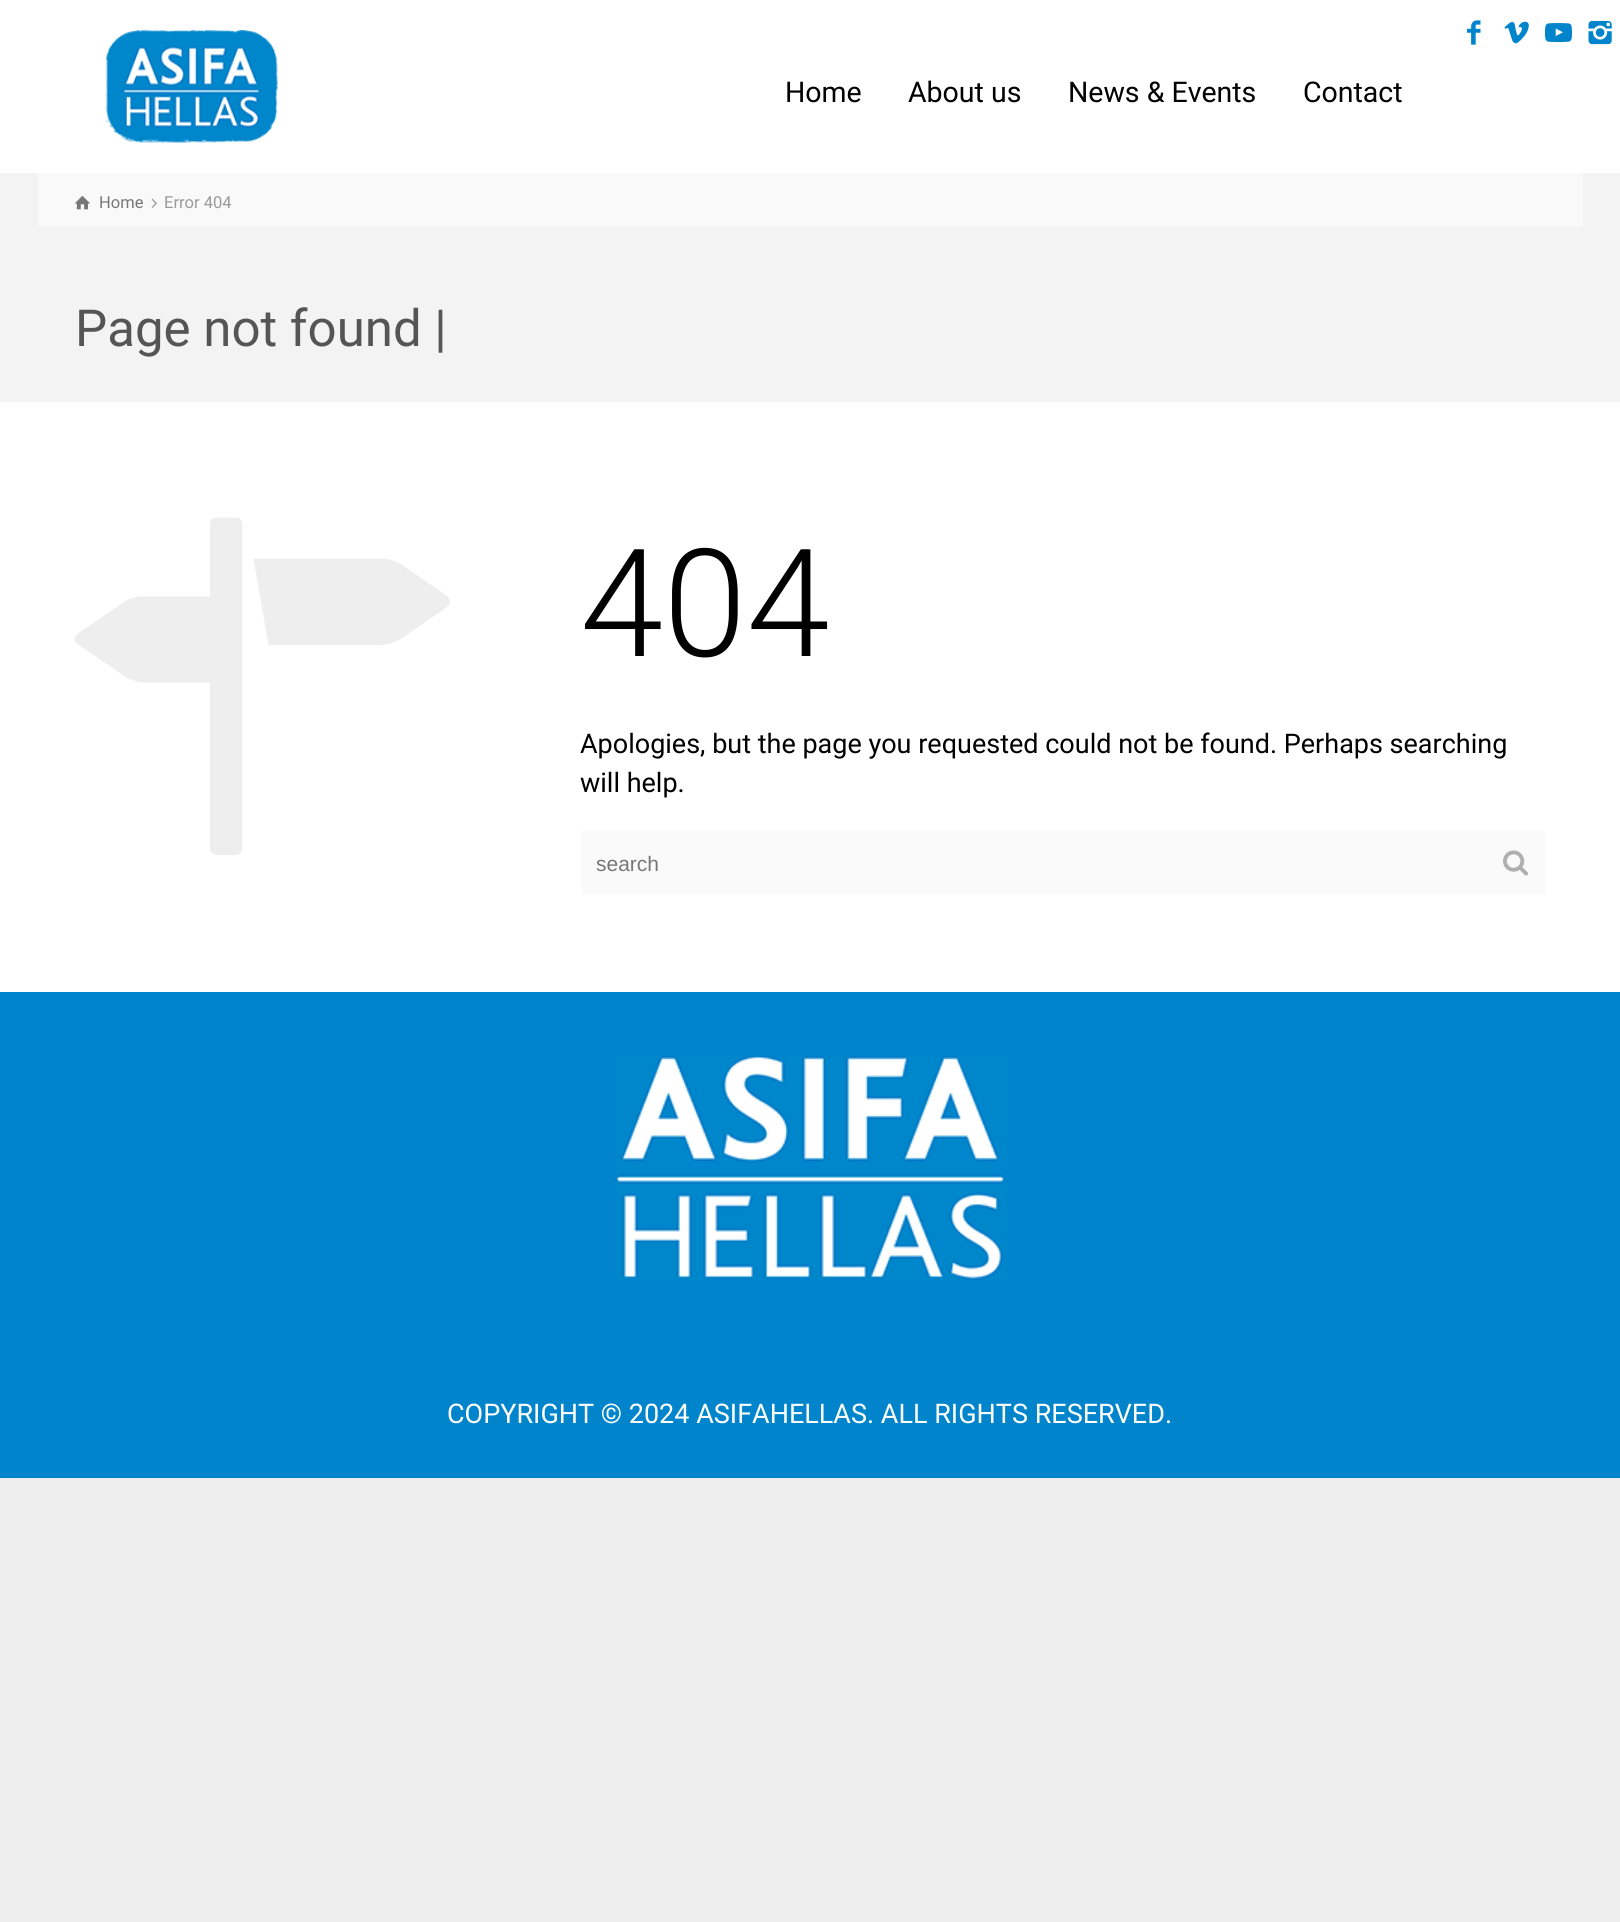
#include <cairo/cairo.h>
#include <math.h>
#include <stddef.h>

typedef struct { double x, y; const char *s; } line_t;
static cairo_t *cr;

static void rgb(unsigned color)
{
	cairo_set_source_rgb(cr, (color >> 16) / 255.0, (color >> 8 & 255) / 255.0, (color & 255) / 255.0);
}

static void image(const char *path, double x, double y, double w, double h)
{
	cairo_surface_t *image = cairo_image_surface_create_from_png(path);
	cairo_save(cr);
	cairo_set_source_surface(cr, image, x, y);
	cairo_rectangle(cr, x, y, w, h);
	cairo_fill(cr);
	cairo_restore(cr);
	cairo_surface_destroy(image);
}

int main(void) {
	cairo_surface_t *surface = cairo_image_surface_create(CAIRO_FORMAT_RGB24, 1620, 1922);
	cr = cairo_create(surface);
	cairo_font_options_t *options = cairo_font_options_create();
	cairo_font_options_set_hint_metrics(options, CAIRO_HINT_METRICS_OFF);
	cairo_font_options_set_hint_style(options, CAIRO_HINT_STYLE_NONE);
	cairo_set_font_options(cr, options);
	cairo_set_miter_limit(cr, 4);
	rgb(0xededed);
	cairo_paint(cr);
	rgb(0xffffff);
	cairo_rectangle(cr, 0, 0, 1620, 173);
	cairo_fill(cr);
	image("img/1.png", 105, 30, 173, 113);
	image("img/2.png", 1467, 20, 14, 25);
	image("img/3.png", 1504, 21, 25, 23);
	image("img/4.png", 1545, 23, 27, 20);
	image("img/5.png", 1588, 20, 24, 25);
	rgb(0xf3f3f3);
	cairo_rectangle(cr, 0, 173, 1620, 229);
	cairo_fill(cr);
	rgb(0xf9f9f9);
	cairo_rectangle(cr, 38, 173, 1545, 54);
	cairo_fill(cr);
	image("img/6.png", 75, 196, 15, 14);
	image("img/7.png", 151, 198, 6, 10);
	rgb(0xffffff);
	cairo_rectangle(cr, 0, 402, 1620, 590);
	cairo_fill(cr);
	image("img/8.png", 75, 517, 375, 338);
	rgb(0xfafafa);
	cairo_rectangle(cr, 581, 831, 964, 63);
	cairo_fill(cr);
	image("img/9.png", 1503, 850, 25, 26);
	rgb(0x0085cc);
	cairo_rectangle(cr, 0, 992, 1620, 486);
	cairo_fill(cr);
	image("img/10.png", 615, 1055, 390, 225);
	cairo_select_font_face(cr, "Roboto", CAIRO_FONT_SLANT_NORMAL, CAIRO_FONT_WEIGHT_NORMAL);
	cairo_set_font_size(cr, 28.5);
	rgb(0x000000);
	{
		static const line_t items[] = {
			{785, 102, "Home"},
			{908, 102, "About us"},
			{1068, 102, "News & Events"},
			{1303, 102, "Contact"},
		};
		for (size_t i = 0; i < sizeof items / sizeof *items; i++) {
			cairo_move_to(cr, items[i].x, items[i].y);
			cairo_show_text(cr, items[i].s);
		}
	}
	cairo_set_font_size(cr, 16.5);
	rgb(0x777777);
	cairo_move_to(cr, 99, 208);
	cairo_show_text(cr, "Home");
	rgb(0x999999);
	cairo_move_to(cr, 164, 208);
	cairo_show_text(cr, "Error 404");
	cairo_set_font_size(cr, 51);
	rgb(0x555555);
	cairo_move_to(cr, 75, 346);
	cairo_show_text(cr, "Page not found |");
	cairo_select_font_face(cr, "Roboto Light", CAIRO_FONT_SLANT_NORMAL, CAIRO_FONT_WEIGHT_NORMAL);
	cairo_set_font_size(cr, 150);
	rgb(0x000000);
	cairo_move_to(cr, 580, 656);
	cairo_show_text(cr, "404");
	cairo_select_font_face(cr, "Roboto", CAIRO_FONT_SLANT_NORMAL, CAIRO_FONT_WEIGHT_NORMAL);
	cairo_set_font_size(cr, 27);
	cairo_move_to(cr, 580, 753);
	cairo_show_text(cr, "Apologies, but the page you requested could not be found. Perhaps searching");
	cairo_move_to(cr, 580, 792);
	cairo_show_text(cr, "will help.");
	cairo_select_font_face(cr, "Liberation Sans", CAIRO_FONT_SLANT_NORMAL, CAIRO_FONT_WEIGHT_NORMAL);
	cairo_set_font_size(cr, 21);
	rgb(0x777777);
	cairo_move_to(cr, 596, 871);
	cairo_show_text(cr, "search");
	cairo_select_font_face(cr, "Roboto", CAIRO_FONT_SLANT_NORMAL, CAIRO_FONT_WEIGHT_NORMAL);
	cairo_set_font_size(cr, 27);
	rgb(0xffffff);
	cairo_move_to(cr, 447, 1423);
	cairo_show_text(cr, "COPYRIGHT © 2024 ASIFAHELLAS. ALL RIGHTS RESERVED.");
	cairo_surface_write_to_png(surface, "page.png");
	cairo_font_options_destroy(options);
	cairo_destroy(cr);
	cairo_surface_destroy(surface);
	return 0;
}
